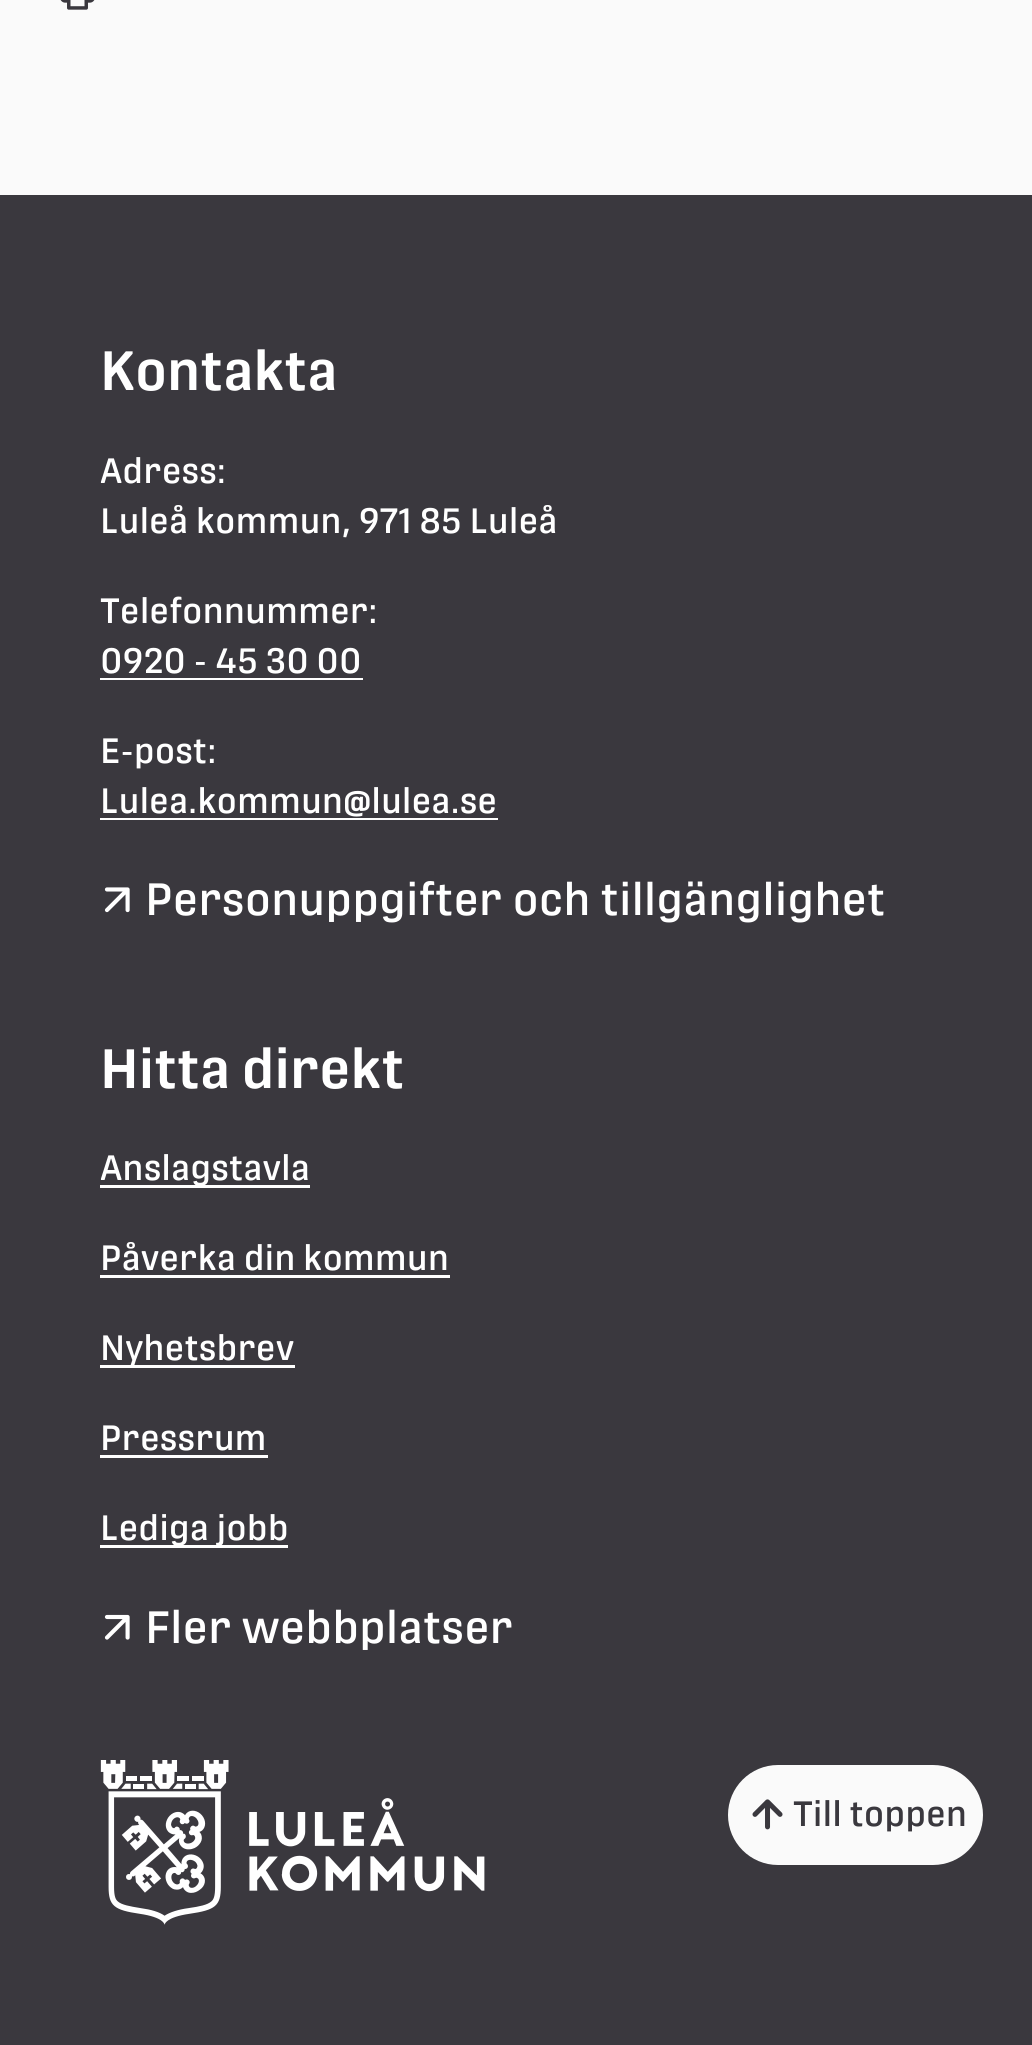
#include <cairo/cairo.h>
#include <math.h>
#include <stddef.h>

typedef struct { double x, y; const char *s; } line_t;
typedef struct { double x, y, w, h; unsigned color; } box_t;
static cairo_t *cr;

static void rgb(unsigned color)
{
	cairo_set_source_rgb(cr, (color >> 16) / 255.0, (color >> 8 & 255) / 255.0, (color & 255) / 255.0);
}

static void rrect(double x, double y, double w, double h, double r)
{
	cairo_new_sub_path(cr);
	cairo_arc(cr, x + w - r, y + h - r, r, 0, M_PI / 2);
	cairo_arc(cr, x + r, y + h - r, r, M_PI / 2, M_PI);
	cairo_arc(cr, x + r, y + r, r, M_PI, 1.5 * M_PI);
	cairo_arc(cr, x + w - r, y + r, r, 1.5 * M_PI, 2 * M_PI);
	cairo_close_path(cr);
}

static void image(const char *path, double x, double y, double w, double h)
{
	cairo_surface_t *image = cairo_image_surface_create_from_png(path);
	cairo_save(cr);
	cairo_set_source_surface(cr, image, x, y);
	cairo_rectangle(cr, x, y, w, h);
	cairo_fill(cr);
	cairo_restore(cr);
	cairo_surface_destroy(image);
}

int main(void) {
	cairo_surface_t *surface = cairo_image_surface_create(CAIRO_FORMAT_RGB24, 1032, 2045);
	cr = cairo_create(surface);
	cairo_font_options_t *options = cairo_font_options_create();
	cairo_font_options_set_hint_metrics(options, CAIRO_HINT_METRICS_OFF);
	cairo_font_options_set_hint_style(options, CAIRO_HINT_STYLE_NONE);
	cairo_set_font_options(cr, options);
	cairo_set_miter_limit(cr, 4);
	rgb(0xfafafa);
	cairo_paint(cr);
	image("img/1.png", 60, 0, 35, 10);
	{
		static const box_t items[] = {
			{0, 195, 1032, 1850, 0x3a383e},
			{100, 678, 263, 2, 0xffffff},
			{100, 818, 398, 2, 0xffffff},
		};
		for (size_t i = 0; i < sizeof items / sizeof *items; i++) {
			rgb(items[i].color);
			cairo_rectangle(cr, items[i].x, items[i].y, items[i].w, items[i].h);
			cairo_fill(cr);
		}
	}
	image("img/2.png", 104, 887, 26, 26);
	{
		static const box_t items[] = {
			{100, 1185, 210, 3, 0xffffff},
			{100, 1275, 350, 3, 0xffffff},
			{100, 1365, 195, 3, 0xffffff},
			{100, 1455, 168, 3, 0xffffff},
			{100, 1545, 188, 3, 0xffffff},
		};
		for (size_t i = 0; i < sizeof items / sizeof *items; i++) {
			rgb(items[i].color);
			cairo_rectangle(cr, items[i].x, items[i].y, items[i].w, items[i].h);
			cairo_fill(cr);
		}
	}
	image("img/3.png", 104, 1614, 26, 26);
	image("img/4.png", 100, 1760, 385, 165);
	rgb(0xfafafa);
	rrect(728, 1765, 255, 100, 50);
	cairo_fill(cr);
	image("img/5.png", 752, 1799, 31, 31);
	cairo_select_font_face(cr, "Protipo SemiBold", CAIRO_FONT_SLANT_NORMAL, CAIRO_FONT_WEIGHT_NORMAL);
	cairo_set_font_size(cr, 55);
	rgb(0xffffff);
	cairo_move_to(cr, 100, 390);
	cairo_show_text(cr, "Kontakta");
	cairo_select_font_face(cr, "Protipo Medium", CAIRO_FONT_SLANT_NORMAL, CAIRO_FONT_WEIGHT_NORMAL);
	cairo_set_font_size(cr, 35);
	{
		static const line_t items[] = {
			{100, 483, "Adress:"},
			{100, 533, "Luleå kommun, 971 85 Luleå"},
			{100, 623, "Telefonnummer:"},
			{100, 673, "0920 - 45 30 00"},
			{100, 763, "E-post:"},
			{100, 813, "Lulea.kommun@lulea.se"},
		};
		for (size_t i = 0; i < sizeof items / sizeof *items; i++) {
			cairo_move_to(cr, items[i].x, items[i].y);
			cairo_show_text(cr, items[i].s);
		}
	}
	cairo_set_font_size(cr, 45);
	cairo_move_to(cr, 145, 915);
	cairo_show_text(cr, "Personuppgifter och tillgänglighet");
	cairo_select_font_face(cr, "Protipo SemiBold", CAIRO_FONT_SLANT_NORMAL, CAIRO_FONT_WEIGHT_NORMAL);
	cairo_set_font_size(cr, 55);
	cairo_move_to(cr, 100, 1088);
	cairo_show_text(cr, "Hitta direkt");
	cairo_select_font_face(cr, "Protipo Medium", CAIRO_FONT_SLANT_NORMAL, CAIRO_FONT_WEIGHT_NORMAL);
	cairo_set_font_size(cr, 35);
	{
		static const line_t items[] = {
			{100, 1180, "Anslagstavla"},
			{100, 1270, "Påverka din kommun"},
			{100, 1360, "Nyhetsbrev"},
			{100, 1450, "Pressrum"},
			{100, 1540, "Lediga jobb"},
		};
		for (size_t i = 0; i < sizeof items / sizeof *items; i++) {
			cairo_move_to(cr, items[i].x, items[i].y);
			cairo_show_text(cr, items[i].s);
		}
	}
	cairo_set_font_size(cr, 45);
	cairo_move_to(cr, 145, 1643);
	cairo_show_text(cr, "Fler webbplatser");
	cairo_set_font_size(cr, 35);
	rgb(0x3a383e);
	cairo_move_to(cr, 793, 1826);
	cairo_show_text(cr, "Till toppen");
	cairo_surface_write_to_png(surface, "page.png");
	cairo_font_options_destroy(options);
	cairo_destroy(cr);
	cairo_surface_destroy(surface);
	return 0;
}
